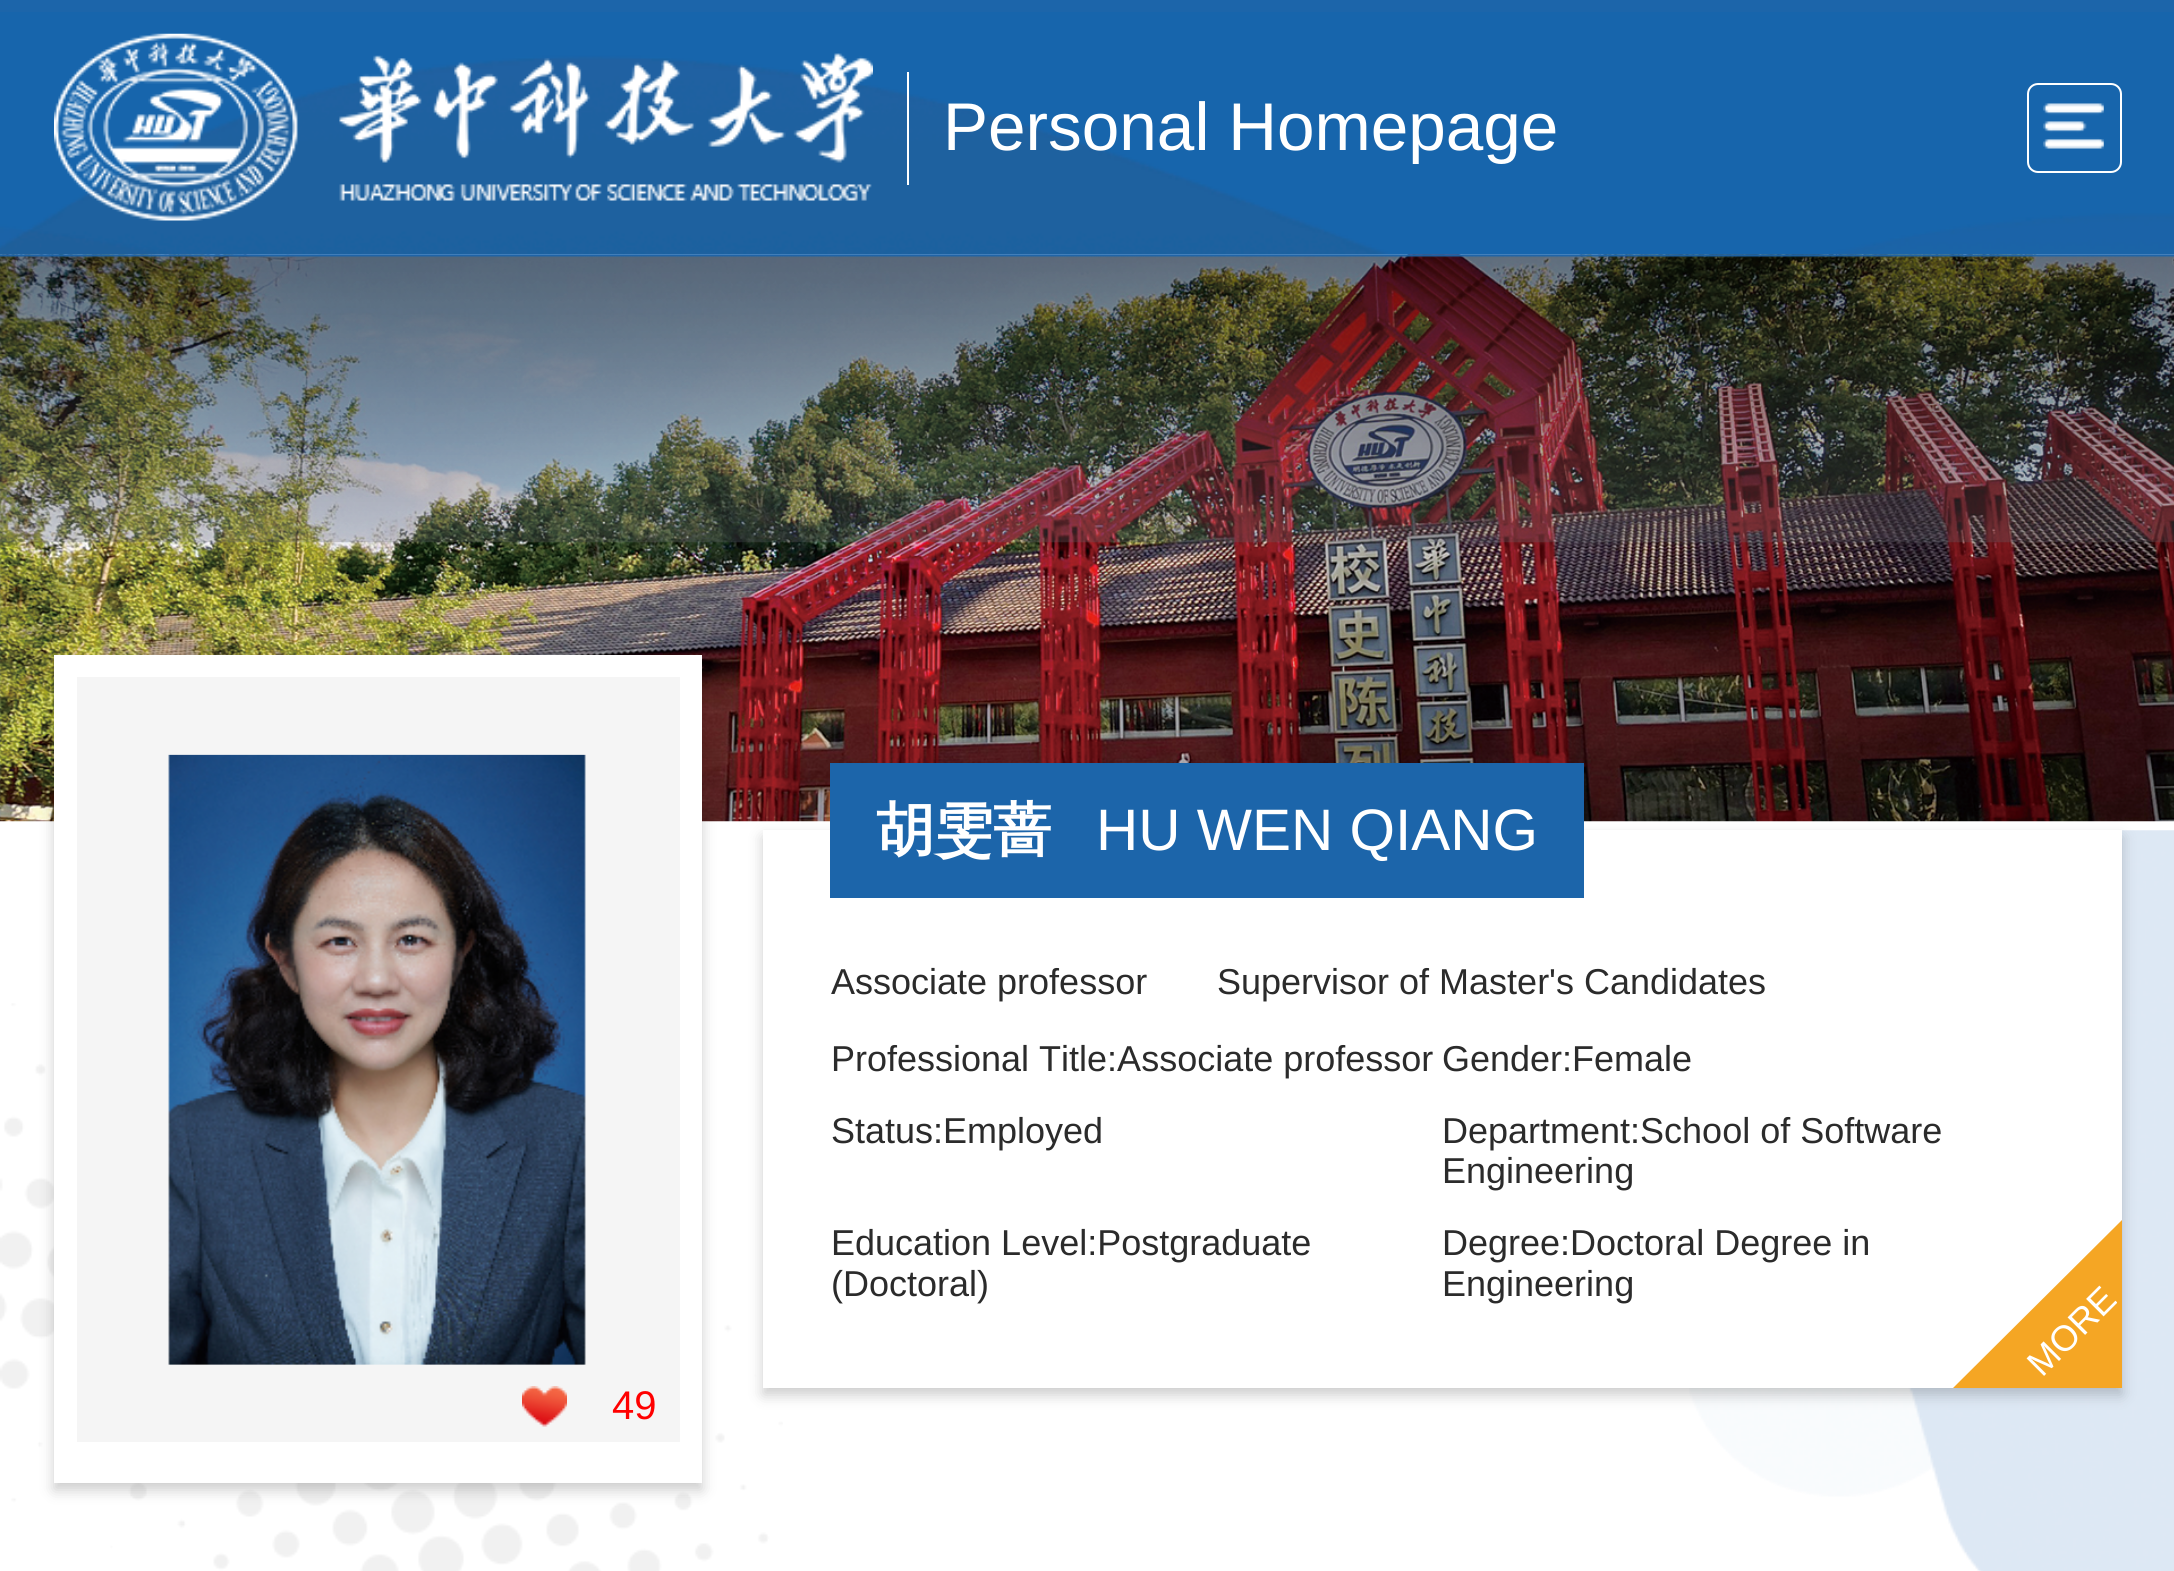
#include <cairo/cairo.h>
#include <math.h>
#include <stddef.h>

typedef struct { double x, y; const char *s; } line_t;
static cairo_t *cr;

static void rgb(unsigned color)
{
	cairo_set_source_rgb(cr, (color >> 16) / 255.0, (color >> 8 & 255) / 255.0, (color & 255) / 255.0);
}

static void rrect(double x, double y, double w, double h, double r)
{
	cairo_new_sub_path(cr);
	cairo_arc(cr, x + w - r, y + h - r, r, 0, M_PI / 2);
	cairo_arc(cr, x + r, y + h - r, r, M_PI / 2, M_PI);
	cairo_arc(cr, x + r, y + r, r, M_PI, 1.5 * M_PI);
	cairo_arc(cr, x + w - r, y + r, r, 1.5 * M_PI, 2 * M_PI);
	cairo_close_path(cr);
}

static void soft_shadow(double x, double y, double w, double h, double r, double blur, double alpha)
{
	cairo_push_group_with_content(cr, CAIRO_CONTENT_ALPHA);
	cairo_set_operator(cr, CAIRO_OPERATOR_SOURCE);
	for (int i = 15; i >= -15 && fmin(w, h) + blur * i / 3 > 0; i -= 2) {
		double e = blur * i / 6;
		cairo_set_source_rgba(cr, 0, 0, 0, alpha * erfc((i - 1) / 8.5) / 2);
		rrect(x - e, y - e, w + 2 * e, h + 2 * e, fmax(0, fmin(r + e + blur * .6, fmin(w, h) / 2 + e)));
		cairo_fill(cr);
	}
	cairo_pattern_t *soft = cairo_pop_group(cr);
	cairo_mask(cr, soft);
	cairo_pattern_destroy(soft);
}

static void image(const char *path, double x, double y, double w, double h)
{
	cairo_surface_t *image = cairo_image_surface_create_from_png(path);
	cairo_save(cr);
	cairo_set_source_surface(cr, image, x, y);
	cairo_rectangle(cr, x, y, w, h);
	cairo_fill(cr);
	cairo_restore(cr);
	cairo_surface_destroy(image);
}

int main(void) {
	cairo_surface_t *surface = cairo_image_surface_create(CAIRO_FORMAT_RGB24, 2174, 1571);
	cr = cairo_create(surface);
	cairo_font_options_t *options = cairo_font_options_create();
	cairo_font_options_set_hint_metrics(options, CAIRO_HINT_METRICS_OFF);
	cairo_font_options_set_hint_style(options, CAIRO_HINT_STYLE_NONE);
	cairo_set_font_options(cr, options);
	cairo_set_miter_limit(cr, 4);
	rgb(0xffffff);
	cairo_paint(cr);
	rgb(0x1c65aa);
	cairo_rectangle(cr, 0, 0, 2174, 12);
	cairo_fill(cr);
	image("img/1.png", 0, 12, 2174, 243);
	image("img/2.png", 54, 33, 819, 188);
	rgb(0xffffff);
	cairo_rectangle(cr, 907, 72, 2, 113);
	cairo_fill(cr);
	rrect(2028, 84, 93, 88, 10);
	cairo_stroke(cr);
	image("img/3.png", 2043, 103, 61, 46);
	image("img/4.png", 0, 254, 2174, 568);
	image("img/5.png", 0, 254, 2174, 289);
	image("img/6.png", 1689, 830, 485, 741);
	image("img/7.png", 0, 1003, 783, 568);
	rgb(0x000000);
	soft_shadow(763, 837, 1359, 558, 0, 7, 0.2);
	rgb(0xffffff);
	cairo_rectangle(cr, 763, 830, 1359, 558);
	cairo_fill(cr);
	rgb(0x1c65aa);
	cairo_rectangle(cr, 830, 763, 754, 135);
	cairo_fill(cr);
	rgb(0xf5a624);
	cairo_new_path(cr);
	cairo_move_to(cr, 2122, 1220);
	cairo_line_to(cr, 2122, 1388);
	cairo_line_to(cr, 1953, 1388);
	cairo_close_path(cr);
	cairo_fill(cr);
	rgb(0x000000);
	soft_shadow(54, 662, 648, 828, 0, 7, 0.2);
	rgb(0xffffff);
	cairo_rectangle(cr, 54, 655, 648, 828);
	cairo_fill(cr);
	rgb(0xf5f5f5);
	cairo_rectangle(cr, 77, 677, 603, 765);
	cairo_fill(cr);
	image("img/8.png", 168, 754, 418, 611);
	image("img/9.png", 522, 1386, 45, 41);
	cairo_select_font_face(cr, "Liberation Sans", CAIRO_FONT_SLANT_NORMAL, CAIRO_FONT_WEIGHT_NORMAL);
	cairo_set_font_size(cr, 67.5);
	rgb(0xffffff);
	cairo_move_to(cr, 943, 150);
	cairo_show_text(cr, "Personal Homepage");
	cairo_select_font_face(cr, "WenQuanYi Zen Hei", CAIRO_FONT_SLANT_NORMAL, CAIRO_FONT_WEIGHT_BOLD);
	cairo_set_font_size(cr, 58.5);
	cairo_move_to(cr, 876, 850);
	cairo_show_text(cr, "胡雯蔷");
	cairo_select_font_face(cr, "Liberation Sans", CAIRO_FONT_SLANT_NORMAL, CAIRO_FONT_WEIGHT_NORMAL);
	cairo_move_to(cr, 1096, 850);
	cairo_show_text(cr, "HU WEN QIANG");
	cairo_set_font_size(cr, 36);
	rgb(0x2b2b2b);
	{
		static const line_t items[] = {
			{831, 994, "Associate professor"},
			{1217, 994, "Supervisor of Master's Candidates"},
			{831, 1071, "Professional Title:Associate professor"},
			{1442, 1071, "Gender:Female"},
			{831, 1143, "Status:Employed"},
			{1442, 1143, "Department:School of Software"},
			{1442, 1183, "Engineering"},
			{831, 1255, "Education Level:Postgraduate"},
			{831, 1296, "(Doctoral)"},
			{1442, 1255, "Degree:Doctoral Degree in"},
			{1442, 1296, "Engineering"},
		};
		for (size_t i = 0; i < sizeof items / sizeof *items; i++) {
			cairo_move_to(cr, items[i].x, items[i].y);
			cairo_show_text(cr, items[i].s);
		}
	}
	rgb(0xffffff);
	cairo_save(cr);
	cairo_translate(cr, 2042, 1378);
	cairo_rotate(cr, -45 * M_PI / 180);
	cairo_move_to(cr, 0, 0);
	cairo_show_text(cr, "MORE");
	cairo_restore(cr);
	cairo_set_font_size(cr, 40);
	rgb(0xff0000);
	cairo_move_to(cr, 612, 1419);
	cairo_show_text(cr, "49");
	cairo_surface_write_to_png(surface, "page.png");
	cairo_font_options_destroy(options);
	cairo_destroy(cr);
	cairo_surface_destroy(surface);
	return 0;
}
